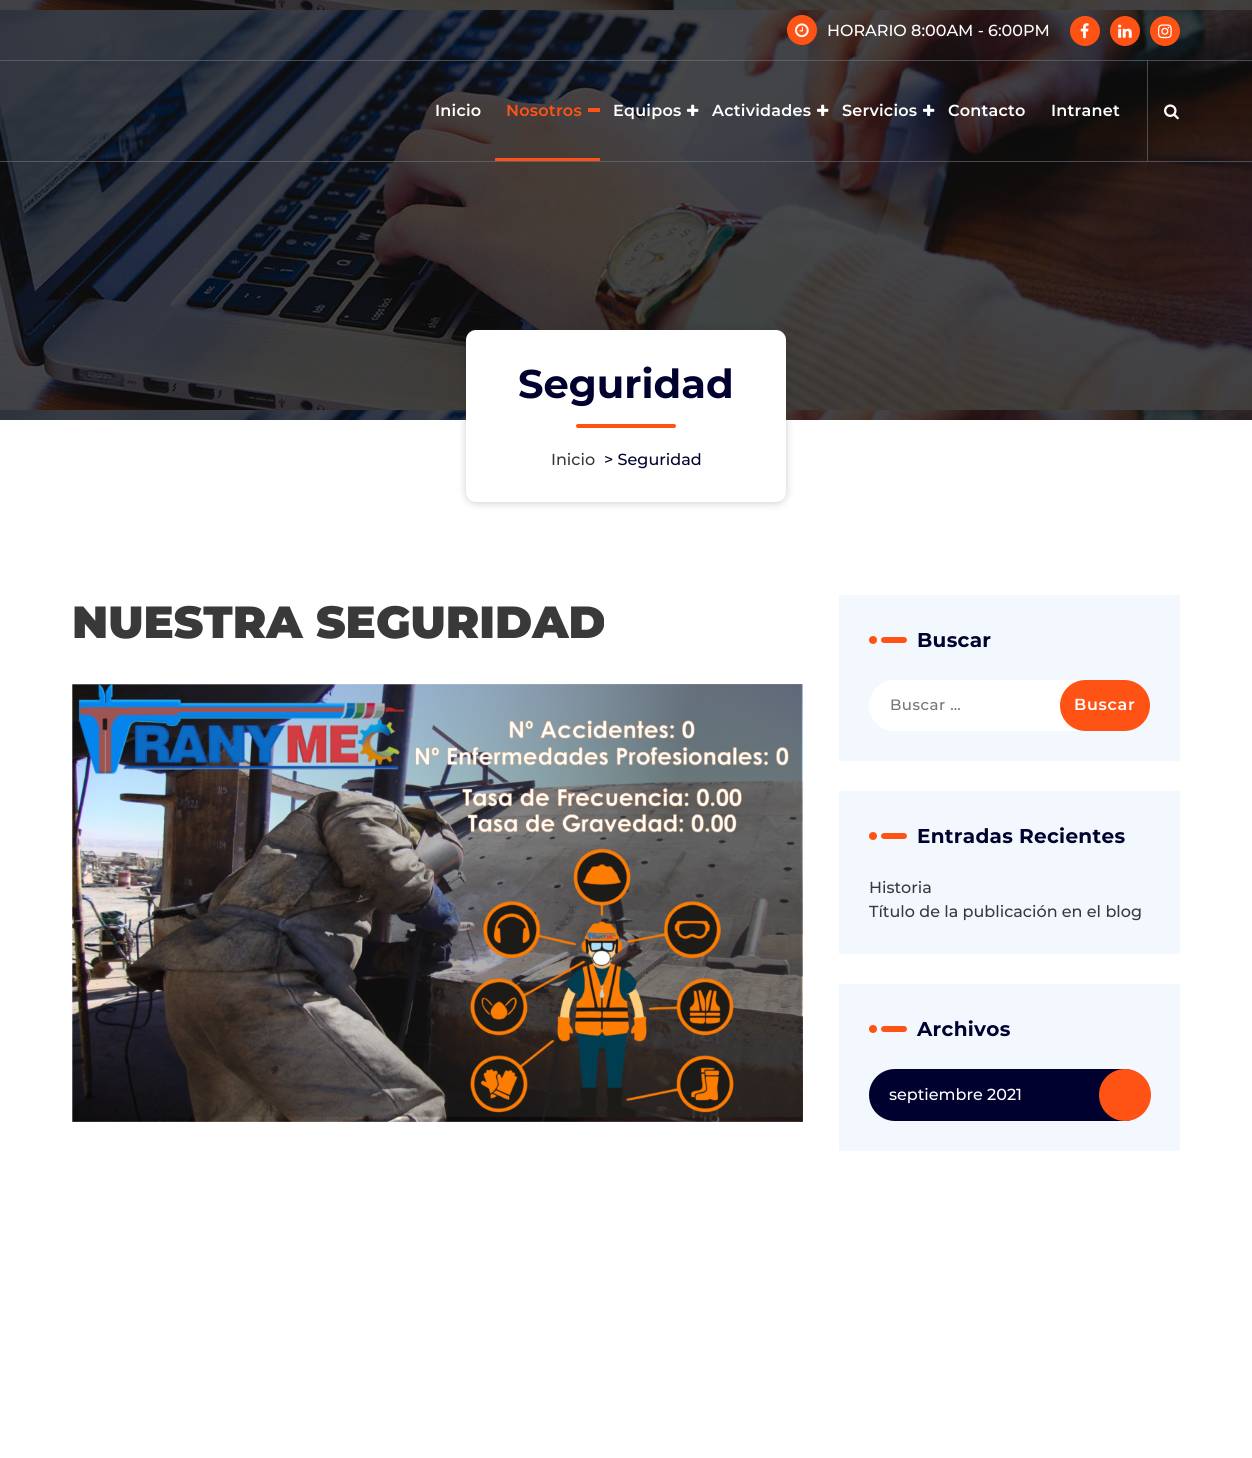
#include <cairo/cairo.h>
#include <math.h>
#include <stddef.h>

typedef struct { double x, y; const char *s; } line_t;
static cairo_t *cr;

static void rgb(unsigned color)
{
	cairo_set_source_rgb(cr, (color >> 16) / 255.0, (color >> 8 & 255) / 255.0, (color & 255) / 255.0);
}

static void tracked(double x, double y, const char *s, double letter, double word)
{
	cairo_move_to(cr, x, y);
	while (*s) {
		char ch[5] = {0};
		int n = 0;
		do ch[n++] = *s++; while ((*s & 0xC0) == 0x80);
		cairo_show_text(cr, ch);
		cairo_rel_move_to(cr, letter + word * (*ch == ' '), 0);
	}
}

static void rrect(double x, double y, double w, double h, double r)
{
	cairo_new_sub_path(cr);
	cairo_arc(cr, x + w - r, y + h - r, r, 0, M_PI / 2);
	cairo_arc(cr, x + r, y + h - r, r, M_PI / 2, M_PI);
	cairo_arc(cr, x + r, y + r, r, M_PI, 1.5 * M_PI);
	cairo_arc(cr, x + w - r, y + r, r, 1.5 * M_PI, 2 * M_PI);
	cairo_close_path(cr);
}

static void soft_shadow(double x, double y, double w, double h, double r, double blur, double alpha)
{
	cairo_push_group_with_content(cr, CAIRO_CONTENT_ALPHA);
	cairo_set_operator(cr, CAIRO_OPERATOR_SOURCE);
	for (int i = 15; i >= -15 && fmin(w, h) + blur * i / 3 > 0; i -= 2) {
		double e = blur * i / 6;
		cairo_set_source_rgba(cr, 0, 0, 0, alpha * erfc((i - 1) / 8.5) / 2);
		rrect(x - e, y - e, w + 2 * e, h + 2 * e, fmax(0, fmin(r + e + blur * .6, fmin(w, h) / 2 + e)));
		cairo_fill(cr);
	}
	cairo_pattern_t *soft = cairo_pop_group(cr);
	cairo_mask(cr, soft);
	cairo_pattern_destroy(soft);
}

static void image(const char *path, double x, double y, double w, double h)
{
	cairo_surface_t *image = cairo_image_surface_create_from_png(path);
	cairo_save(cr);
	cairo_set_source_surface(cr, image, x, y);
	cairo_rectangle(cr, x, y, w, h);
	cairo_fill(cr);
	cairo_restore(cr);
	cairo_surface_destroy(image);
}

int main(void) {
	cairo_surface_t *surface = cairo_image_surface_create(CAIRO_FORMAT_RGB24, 1252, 1458);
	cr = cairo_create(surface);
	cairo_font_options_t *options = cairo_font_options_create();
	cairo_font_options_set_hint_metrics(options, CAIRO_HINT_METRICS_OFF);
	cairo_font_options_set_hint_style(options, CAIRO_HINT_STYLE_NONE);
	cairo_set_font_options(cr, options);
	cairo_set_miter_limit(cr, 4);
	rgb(0xffffff);
	cairo_paint(cr);
	image("img/9.png", 0, 0, 1252, 420);
	cairo_set_source_rgba(cr, 0.424, 0.459, 0.49, 0.6);
	cairo_rectangle(cr, 0, 60, 1252, 1);
	cairo_fill(cr);
	rgb(0xff5316);
	cairo_arc(cr, 802, 30, 15, 0, 2 * M_PI);
	cairo_fill(cr);
	image("img/1.png", 795, 23, 14, 15);
	cairo_arc(cr, 1085, 31, 15, 0, 2 * M_PI);
	cairo_fill(cr);
	image("img/2.png", 1080, 23, 9, 16);
	cairo_arc(cr, 1125, 31, 15, 0, 2 * M_PI);
	cairo_fill(cr);
	image("img/3.png", 1118, 24, 14, 14);
	cairo_arc(cr, 1165, 31, 15, 0, 2 * M_PI);
	cairo_fill(cr);
	image("img/4.png", 1158, 24, 14, 15);
	cairo_set_source_rgba(cr, 0.424, 0.459, 0.49, 0.6);
	cairo_rectangle(cr, 0, 161, 1252, 1);
	cairo_fill(cr);
	rgb(0xff5316);
	cairo_rectangle(cr, 588, 108, 12, 4);
	cairo_fill(cr);
	cairo_rectangle(cr, 495, 158, 105, 3);
	cairo_fill(cr);
	image("img/5.png", 687, 104, 12, 12);
	image("img/6.png", 817, 104, 12, 12);
	image("img/7.png", 923, 104, 12, 12);
	cairo_set_source_rgba(cr, 0.424, 0.459, 0.49, 0.6);
	cairo_rectangle(cr, 1147, 61, 1, 100);
	cairo_fill(cr);
	image("img/8.png", 1164, 104, 15, 16);
	rgb(0x212121);
	soft_shadow(466, 330, 320, 173, 10, 4, 0.23);
	rgb(0xffffff);
	rrect(466, 330, 320, 172, 10);
	cairo_fill(cr);
	rgb(0xff5316);
	rrect(576, 424, 100, 4, 2);
	cairo_fill(cr);
	image("img/10.png", 72, 684, 731, 438);
	rgb(0xf3f8fe);
	cairo_rectangle(cr, 839, 595, 341, 166);
	cairo_fill(cr);
	rgb(0xff5316);
	cairo_arc(cr, 873, 640, 4, 0, 2 * M_PI);
	cairo_fill(cr);
	rrect(881, 637, 26, 6, 3);
	cairo_fill(cr);
	rgb(0xffffff);
	rrect(869, 680, 281, 51, 25.5);
	cairo_fill(cr);
	rgb(0xff5316);
	rrect(1060, 680, 90, 51, 25.5);
	cairo_fill(cr);
	rgb(0xf3f8fe);
	cairo_rectangle(cr, 839, 791, 341, 163);
	cairo_fill(cr);
	rgb(0xff5316);
	cairo_arc(cr, 873, 836, 4, 0, 2 * M_PI);
	cairo_fill(cr);
	rrect(881, 833, 26, 6, 3);
	cairo_fill(cr);
	rgb(0xf3f8fe);
	cairo_rectangle(cr, 839, 984, 341, 167);
	cairo_fill(cr);
	rgb(0xff5316);
	cairo_arc(cr, 873, 1029, 4, 0, 2 * M_PI);
	cairo_fill(cr);
	rrect(881, 1026, 26, 6, 3);
	cairo_fill(cr);
	rgb(0x01012f);
	rrect(869, 1069, 281, 52, 26);
	cairo_fill(cr);
	rgb(0xff5316);
	cairo_arc(cr, 1125, 1095, 26, 0, 2 * M_PI);
	cairo_fill(cr);
	cairo_select_font_face(cr, "Montserrat Medium", CAIRO_FONT_SLANT_NORMAL, CAIRO_FONT_WEIGHT_NORMAL);
	cairo_set_font_size(cr, 16);
	rgb(0xffffff);
	cairo_move_to(cr, 827, 36);
	cairo_show_text(cr, "HORARIO 8:00AM - 6:00PM");
	cairo_select_font_face(cr, "Montserrat SemiBold", CAIRO_FONT_SLANT_NORMAL, CAIRO_FONT_WEIGHT_NORMAL);
	tracked(435, 116, "Inicio", 0.25, 0);
	rgb(0xff5316);
	tracked(506, 116, "Nosotros", 0.25, 0);
	rgb(0xffffff);
	{
		static const line_t items[] = {
			{613, 116, "Equipos"},
			{712, 116, "Actividades"},
			{842, 116, "Servicios"},
			{948, 116, "Contacto"},
			{1051, 116, "Intranet"},
		};
		for (size_t i = 0; i < sizeof items / sizeof *items; i++) {
			tracked(items[i].x, items[i].y, items[i].s, 0.25, 0);
		}
	}
	cairo_select_font_face(cr, "Montserrat", CAIRO_FONT_SLANT_NORMAL, CAIRO_FONT_WEIGHT_BOLD);
	cairo_set_font_size(cr, 40);
	rgb(0x01012f);
	cairo_move_to(cr, 518, 398);
	cairo_show_text(cr, "Seguridad");
	cairo_select_font_face(cr, "Montserrat Medium", CAIRO_FONT_SLANT_NORMAL, CAIRO_FONT_WEIGHT_NORMAL);
	cairo_set_font_size(cr, 16);
	rgb(0x393939);
	cairo_move_to(cr, 551, 465);
	cairo_show_text(cr, "Inicio");
	rgb(0x01012f);
	cairo_move_to(cr, 604, 465);
	cairo_show_text(cr, "> Seguridad");
	cairo_select_font_face(cr, "Montserrat Black", CAIRO_FONT_SLANT_NORMAL, CAIRO_FONT_WEIGHT_NORMAL);
	cairo_set_font_size(cr, 45);
	rgb(0x393939);
	cairo_move_to(cr, 72, 638);
	cairo_show_text(cr, "NUESTRA SEGURIDAD");
	cairo_select_font_face(cr, "Montserrat", CAIRO_FONT_SLANT_NORMAL, CAIRO_FONT_WEIGHT_BOLD);
	cairo_set_font_size(cr, 20);
	rgb(0x01012f);
	tracked(917, 647, "Buscar", 0.3, 0);
	cairo_select_font_face(cr, "Montserrat Medium", CAIRO_FONT_SLANT_NORMAL, CAIRO_FONT_WEIGHT_NORMAL);
	cairo_set_font_size(cr, 15);
	rgb(0x757575);
	tracked(890, 710, "Buscar …", 0.5, 0);
	cairo_select_font_face(cr, "Montserrat SemiBold", CAIRO_FONT_SLANT_NORMAL, CAIRO_FONT_WEIGHT_NORMAL);
	cairo_set_font_size(cr, 16);
	rgb(0xffffff);
	tracked(1074, 710, "Buscar", 0.75, 0);
	cairo_select_font_face(cr, "Montserrat", CAIRO_FONT_SLANT_NORMAL, CAIRO_FONT_WEIGHT_BOLD);
	cairo_set_font_size(cr, 20);
	rgb(0x01012f);
	tracked(917, 843, "Entradas Recientes", 0.3, 0);
	cairo_select_font_face(cr, "Montserrat Medium", CAIRO_FONT_SLANT_NORMAL, CAIRO_FONT_WEIGHT_NORMAL);
	cairo_set_font_size(cr, 16);
	rgb(0x393939);
	cairo_move_to(cr, 869, 893);
	cairo_show_text(cr, "Historia");
	cairo_move_to(cr, 869, 917);
	cairo_show_text(cr, "Título de la publicación en el blog");
	cairo_select_font_face(cr, "Montserrat", CAIRO_FONT_SLANT_NORMAL, CAIRO_FONT_WEIGHT_BOLD);
	cairo_set_font_size(cr, 20);
	rgb(0x01012f);
	tracked(917, 1036, "Archivos", 0.3, 0);
	cairo_select_font_face(cr, "Montserrat Medium", CAIRO_FONT_SLANT_NORMAL, CAIRO_FONT_WEIGHT_NORMAL);
	cairo_set_font_size(cr, 16);
	rgb(0xffffff);
	cairo_move_to(cr, 889, 1100);
	cairo_show_text(cr, "septiembre 2021");
	cairo_surface_write_to_png(surface, "page.png");
	cairo_font_options_destroy(options);
	cairo_destroy(cr);
	cairo_surface_destroy(surface);
	return 0;
}
